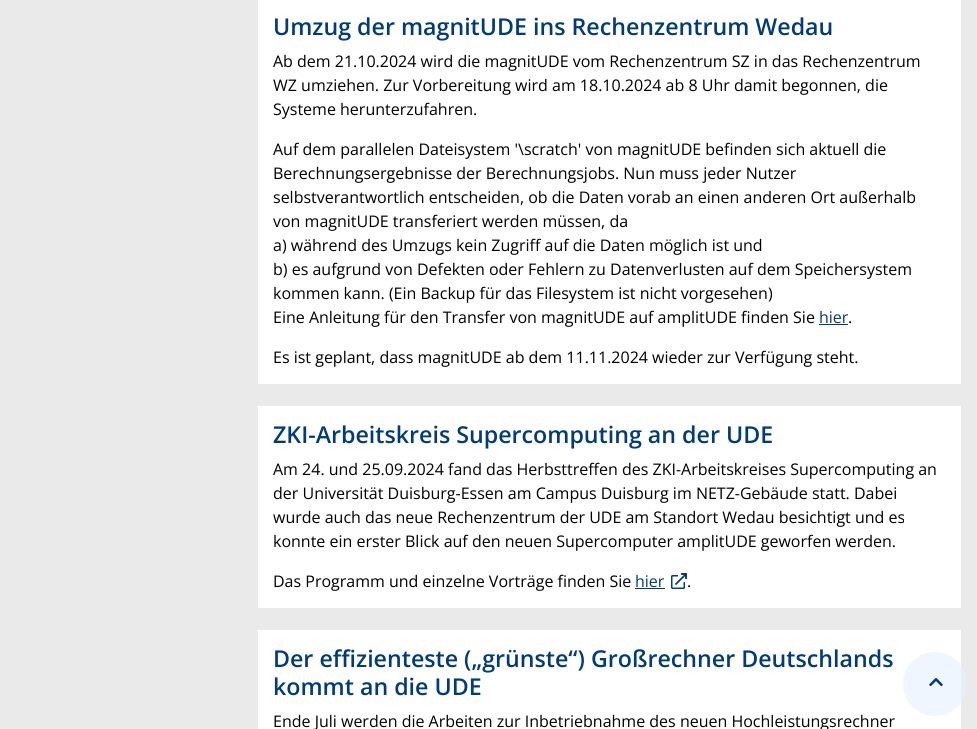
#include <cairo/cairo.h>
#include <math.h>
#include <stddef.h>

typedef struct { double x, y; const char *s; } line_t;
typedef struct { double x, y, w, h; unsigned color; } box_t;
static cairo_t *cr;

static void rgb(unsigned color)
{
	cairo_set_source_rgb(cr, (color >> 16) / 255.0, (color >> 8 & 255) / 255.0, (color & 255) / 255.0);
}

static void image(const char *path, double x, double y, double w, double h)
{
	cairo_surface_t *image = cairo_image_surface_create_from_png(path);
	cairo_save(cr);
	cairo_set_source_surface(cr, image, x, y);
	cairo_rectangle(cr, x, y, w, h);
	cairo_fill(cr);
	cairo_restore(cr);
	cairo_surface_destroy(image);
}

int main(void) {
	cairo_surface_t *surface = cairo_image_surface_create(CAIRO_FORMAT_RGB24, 977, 729);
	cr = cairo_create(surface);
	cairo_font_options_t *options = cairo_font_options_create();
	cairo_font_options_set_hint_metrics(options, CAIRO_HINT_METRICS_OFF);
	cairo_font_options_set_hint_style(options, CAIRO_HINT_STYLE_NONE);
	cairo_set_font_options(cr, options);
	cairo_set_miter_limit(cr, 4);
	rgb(0xeaeaea);
	cairo_paint(cr);
	{
		static const box_t items[] = {
			{258, 0, 703, 384, 0xffffff},
			{819, 324, 29, 1, 0x003b7a},
			{258, 406, 703, 202, 0xffffff},
			{635, 588, 30, 1, 0x003b7a},
		};
		for (size_t i = 0; i < sizeof items / sizeof *items; i++) {
			rgb(items[i].color);
			cairo_rectangle(cr, items[i].x, items[i].y, items[i].w, items[i].h);
			cairo_fill(cr);
		}
	}
	image("img/1.png", 671, 573, 16, 16);
	rgb(0xffffff);
	cairo_rectangle(cr, 258, 630, 703, 99);
	cairo_fill(cr);
	cairo_set_source_rgba(cr, 0.894, 0.941, 1, 0.6);
	cairo_arc(cr, 935, 684, 32, 0, 2 * M_PI);
	cairo_fill(cr);
	image("img/2.png", 929, 677, 14, 10);
	cairo_select_font_face(cr, "Open Sans SemiBold", CAIRO_FONT_SLANT_NORMAL, CAIRO_FONT_WEIGHT_NORMAL);
	cairo_set_font_size(cr, 23.2);
	rgb(0x003b7a);
	cairo_move_to(cr, 273, 35);
	cairo_show_text(cr, "Umzug der magnitUDE ins Rechenzentrum Wedau");
	cairo_select_font_face(cr, "Open Sans", CAIRO_FONT_SLANT_NORMAL, CAIRO_FONT_WEIGHT_NORMAL);
	cairo_set_font_size(cr, 16);
	rgb(0x000000);
	{
		static const line_t items[] = {
			{273, 67, "Ab dem 21.10.2024 wird die magnitUDE vom Rechenzentrum SZ in das Rechenzentrum"},
			{273, 91, "WZ umziehen. Zur Vorbereitung wird am 18.10.2024 ab 8 Uhr damit begonnen, die"},
			{273, 115, "Systeme herunterzufahren."},
			{273, 155, "Auf dem parallelen Dateisystem '\\scratch' von magnitUDE befinden sich aktuell die"},
			{273, 179, "Berechnungsergebnisse der Berechnungsjobs. Nun muss jeder Nutzer"},
			{273, 203, "selbstverantwortlich entscheiden, ob die Daten vorab an einen anderen Ort außerhalb"},
			{273, 227, "von magnitUDE transferiert werden müssen, da"},
			{273, 251, "a) während des Umzugs kein Zugriff auf die Daten möglich ist und"},
			{273, 275, "b) es aufgrund von Defekten oder Fehlern zu Datenverlusten auf dem Speichersystem"},
			{273, 299, "kommen kann. (Ein Backup für das Filesystem ist nicht vorgesehen)"},
			{273, 323, "Eine Anleitung für den Transfer von magnitUDE auf amplitUDE finden Sie"},
		};
		for (size_t i = 0; i < sizeof items / sizeof *items; i++) {
			cairo_move_to(cr, items[i].x, items[i].y);
			cairo_show_text(cr, items[i].s);
		}
	}
	rgb(0x003b7a);
	cairo_move_to(cr, 819, 323);
	cairo_show_text(cr, "hier");
	rgb(0x000000);
	cairo_move_to(cr, 848, 323);
	cairo_show_text(cr, ".");
	cairo_move_to(cr, 273, 363);
	cairo_show_text(cr, "Es ist geplant, dass magnitUDE ab dem 11.11.2024 wieder zur Verfügung steht.");
	cairo_select_font_face(cr, "Open Sans SemiBold", CAIRO_FONT_SLANT_NORMAL, CAIRO_FONT_WEIGHT_NORMAL);
	cairo_set_font_size(cr, 23.2);
	rgb(0x003b7a);
	cairo_move_to(cr, 273, 443);
	cairo_show_text(cr, "ZKI-Arbeitskreis Supercomputing an der UDE");
	cairo_select_font_face(cr, "Open Sans", CAIRO_FONT_SLANT_NORMAL, CAIRO_FONT_WEIGHT_NORMAL);
	cairo_set_font_size(cr, 16);
	rgb(0x000000);
	{
		static const line_t items[] = {
			{273, 475, "Am 24. und 25.09.2024 fand das Herbsttreffen des ZKI-Arbeitskreises Supercomputing an"},
			{273, 499, "der Universität Duisburg-Essen am Campus Duisburg im NETZ-Gebäude statt. Dabei"},
			{273, 523, "wurde auch das neue Rechenzentrum der UDE am Standort Wedau besichtigt und es"},
			{273, 547, "konnte ein erster Blick auf den neuen Supercomputer amplitUDE geworfen werden."},
			{273, 587, "Das Programm und einzelne Vorträge finden Sie"},
		};
		for (size_t i = 0; i < sizeof items / sizeof *items; i++) {
			cairo_move_to(cr, items[i].x, items[i].y);
			cairo_show_text(cr, items[i].s);
		}
	}
	rgb(0x003b7a);
	cairo_move_to(cr, 635, 587);
	cairo_show_text(cr, "hier");
	rgb(0x000000);
	cairo_move_to(cr, 687, 587);
	cairo_show_text(cr, ".");
	cairo_select_font_face(cr, "Open Sans SemiBold", CAIRO_FONT_SLANT_NORMAL, CAIRO_FONT_WEIGHT_NORMAL);
	cairo_set_font_size(cr, 23.2);
	rgb(0x003b7a);
	cairo_move_to(cr, 273, 667);
	cairo_show_text(cr, "Der effizienteste („grünste“) Großrechner Deutschlands");
	cairo_move_to(cr, 273, 695);
	cairo_show_text(cr, "kommt an die UDE");
	cairo_select_font_face(cr, "Open Sans", CAIRO_FONT_SLANT_NORMAL, CAIRO_FONT_WEIGHT_NORMAL);
	cairo_set_font_size(cr, 16);
	rgb(0x000000);
	cairo_move_to(cr, 273, 727);
	cairo_show_text(cr, "Ende Juli werden die Arbeiten zur Inbetriebnahme des neuen Hochleistungsrechner");
	cairo_surface_write_to_png(surface, "page.png");
	cairo_font_options_destroy(options);
	cairo_destroy(cr);
	cairo_surface_destroy(surface);
	return 0;
}
